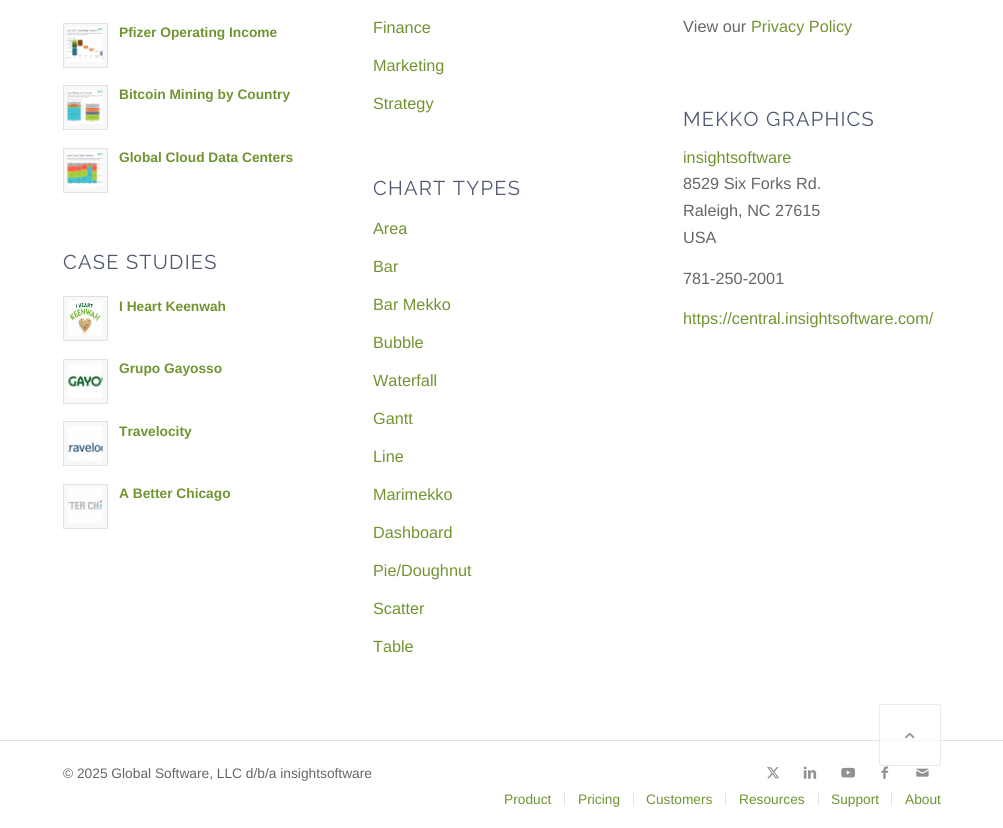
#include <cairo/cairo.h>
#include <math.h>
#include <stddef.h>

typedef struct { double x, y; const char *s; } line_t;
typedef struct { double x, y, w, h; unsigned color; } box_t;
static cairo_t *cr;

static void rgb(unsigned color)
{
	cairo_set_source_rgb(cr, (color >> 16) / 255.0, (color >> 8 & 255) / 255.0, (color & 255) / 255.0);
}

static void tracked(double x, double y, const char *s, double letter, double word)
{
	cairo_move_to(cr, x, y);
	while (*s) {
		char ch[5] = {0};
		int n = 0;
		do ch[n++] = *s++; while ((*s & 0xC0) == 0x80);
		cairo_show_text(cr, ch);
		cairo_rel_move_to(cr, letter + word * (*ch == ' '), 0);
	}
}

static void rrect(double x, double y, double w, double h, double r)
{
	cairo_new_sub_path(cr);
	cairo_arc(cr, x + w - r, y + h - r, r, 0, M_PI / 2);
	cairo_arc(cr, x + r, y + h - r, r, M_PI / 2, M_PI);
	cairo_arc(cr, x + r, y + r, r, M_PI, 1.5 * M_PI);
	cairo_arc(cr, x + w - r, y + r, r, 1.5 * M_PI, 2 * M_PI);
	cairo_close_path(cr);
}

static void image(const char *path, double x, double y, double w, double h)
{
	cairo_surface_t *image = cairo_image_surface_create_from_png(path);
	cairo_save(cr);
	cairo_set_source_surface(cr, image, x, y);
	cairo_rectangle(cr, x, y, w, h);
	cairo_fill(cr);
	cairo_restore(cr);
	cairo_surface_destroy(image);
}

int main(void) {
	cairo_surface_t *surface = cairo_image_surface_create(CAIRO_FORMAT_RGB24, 1003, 828);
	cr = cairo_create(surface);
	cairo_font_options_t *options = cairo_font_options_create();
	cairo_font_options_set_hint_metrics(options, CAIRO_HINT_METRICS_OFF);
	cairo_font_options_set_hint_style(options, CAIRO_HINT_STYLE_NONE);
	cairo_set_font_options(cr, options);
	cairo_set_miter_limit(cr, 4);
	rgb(0xffffff);
	cairo_paint(cr);
	rgb(0xf8f8f8);
	cairo_rectangle(cr, 63.5, 23.5, 44, 44);
	cairo_fill_preserve(cr);
	rgb(0xe1e1e1);
	cairo_set_line_width(cr, 1);
	cairo_stroke(cr);
	image("img/1.png", 67, 27, 36, 35);
	rgb(0xf8f8f8);
	cairo_rectangle(cr, 63.5, 85.5, 44, 44);
	cairo_fill_preserve(cr);
	rgb(0xe1e1e1);
	cairo_stroke(cr);
	image("img/2.png", 67, 90, 36, 34);
	rgb(0xf8f8f8);
	cairo_rectangle(cr, 63.5, 148.5, 44, 44);
	cairo_fill_preserve(cr);
	rgb(0xe1e1e1);
	cairo_stroke(cr);
	image("img/3.png", 67, 152, 36, 35);
	rgb(0xf8f8f8);
	cairo_rectangle(cr, 63.5, 296.5, 44, 44);
	cairo_fill_preserve(cr);
	rgb(0xe1e1e1);
	cairo_stroke(cr);
	image("img/4.png", 68, 301, 34, 35);
	rgb(0xf8f8f8);
	cairo_rectangle(cr, 63.5, 359.5, 44, 44);
	cairo_fill_preserve(cr);
	rgb(0xe1e1e1);
	cairo_stroke(cr);
	image("img/5.png", 67, 363, 36, 35);
	rgb(0xf8f8f8);
	cairo_rectangle(cr, 63.5, 421.5, 44, 44);
	cairo_fill_preserve(cr);
	rgb(0xe1e1e1);
	cairo_stroke(cr);
	image("img/6.png", 67, 426, 36, 35);
	rgb(0xf8f8f8);
	cairo_rectangle(cr, 63.5, 484.5, 44, 44);
	cairo_fill_preserve(cr);
	rgb(0xe1e1e1);
	cairo_stroke(cr);
	image("img/7.png", 67, 488, 36, 35);
	cairo_rectangle(cr, 0, 740, 1003, 1);
	cairo_fill(cr);
	image("img/8.png", 767, 767, 13, 12);
	image("img/9.png", 803, 766, 14, 13);
	image("img/10.png", 841, 767, 14, 11);
	image("img/11.png", 881, 766, 8, 13);
	image("img/12.png", 916, 768, 13, 9);
	{
		static const box_t items[] = {
			{564, 793, 1, 12, 0xe1e1e1},
			{633, 793, 1, 12, 0xe1e1e1},
			{725, 793, 1, 12, 0xe1e1e1},
			{818, 793, 1, 12, 0xe1e1e1},
			{891, 793, 1, 12, 0xe1e1e1},
		};
		for (size_t i = 0; i < sizeof items / sizeof *items; i++) {
			rgb(items[i].color);
			cairo_rectangle(cr, items[i].x, items[i].y, items[i].w, items[i].h);
			cairo_fill(cr);
		}
	}
	cairo_set_source_rgba(cr, 1, 1, 1, 0.7);
	rrect(879, 704, 62, 62, 2.5);
	cairo_fill(cr);
	rrect(879.5, 704.5, 61, 61, 2);
	cairo_set_source_rgba(cr, 0.882, 0.882, 0.882, 0.7);
	cairo_stroke(cr);
	image("img/13.png", 905, 732, 10, 7);
	cairo_select_font_face(cr, "Liberation Sans", CAIRO_FONT_SLANT_NORMAL, CAIRO_FONT_WEIGHT_BOLD);
	cairo_set_font_size(cr, 13.75);
	rgb(0x719430);
	{
		static const line_t items[] = {
			{119, 37, "Pfizer Operating Income"},
			{119, 99, "Bitcoin Mining by Country"},
			{119, 162, "Global Cloud Data Centers"},
		};
		for (size_t i = 0; i < sizeof items / sizeof *items; i++) {
			cairo_move_to(cr, items[i].x, items[i].y);
			cairo_show_text(cr, items[i].s);
		}
	}
	cairo_select_font_face(cr, "Raleway Thin", CAIRO_FONT_SLANT_NORMAL, CAIRO_FONT_WEIGHT_NORMAL);
	cairo_set_font_size(cr, 20);
	rgb(0x4e5870);
	tracked(63, 269, "CASE STUDIES", 1.25, 0);
	cairo_select_font_face(cr, "Liberation Sans", CAIRO_FONT_SLANT_NORMAL, CAIRO_FONT_WEIGHT_BOLD);
	cairo_set_font_size(cr, 13.75);
	rgb(0x719430);
	{
		static const line_t items[] = {
			{119, 311, "I Heart Keenwah"},
			{119, 373, "Grupo Gayosso"},
			{119, 436, "Travelocity"},
			{119, 498, "A Better Chicago"},
		};
		for (size_t i = 0; i < sizeof items / sizeof *items; i++) {
			cairo_move_to(cr, items[i].x, items[i].y);
			cairo_show_text(cr, items[i].s);
		}
	}
	cairo_select_font_face(cr, "Liberation Sans", CAIRO_FONT_SLANT_NORMAL, CAIRO_FONT_WEIGHT_NORMAL);
	cairo_set_font_size(cr, 16.25);
	{
		static const line_t items[] = {
			{373, 33, "Finance"},
			{373, 71, "Marketing"},
			{373, 109, "Strategy"},
		};
		for (size_t i = 0; i < sizeof items / sizeof *items; i++) {
			cairo_move_to(cr, items[i].x, items[i].y);
			cairo_show_text(cr, items[i].s);
		}
	}
	cairo_select_font_face(cr, "Raleway Thin", CAIRO_FONT_SLANT_NORMAL, CAIRO_FONT_WEIGHT_NORMAL);
	cairo_set_font_size(cr, 20);
	rgb(0x4e5870);
	tracked(373, 195, "CHART TYPES", 1.25, 0);
	cairo_select_font_face(cr, "Liberation Sans", CAIRO_FONT_SLANT_NORMAL, CAIRO_FONT_WEIGHT_NORMAL);
	cairo_set_font_size(cr, 16.25);
	rgb(0x719430);
	{
		static const line_t items[] = {
			{373, 234, "Area"},
			{373, 272, "Bar"},
			{373, 310, "Bar Mekko"},
			{373, 348, "Bubble"},
			{373, 386, "Waterfall"},
			{373, 424, "Gantt"},
			{373, 462, "Line"},
			{373, 500, "Marimekko"},
			{373, 538, "Dashboard"},
			{373, 576, "Pie/Doughnut"},
			{373, 614, "Scatter"},
			{373, 652, "Table"},
		};
		for (size_t i = 0; i < sizeof items / sizeof *items; i++) {
			cairo_move_to(cr, items[i].x, items[i].y);
			cairo_show_text(cr, items[i].s);
		}
	}
	rgb(0x666666);
	cairo_move_to(cr, 683, 32);
	cairo_show_text(cr, "View our");
	rgb(0x719430);
	cairo_move_to(cr, 751, 32);
	cairo_show_text(cr, "Privacy Policy");
	cairo_select_font_face(cr, "Raleway Thin", CAIRO_FONT_SLANT_NORMAL, CAIRO_FONT_WEIGHT_NORMAL);
	cairo_set_font_size(cr, 20);
	rgb(0x4e5870);
	tracked(683, 126, "MEKKO GRAPHICS", 1.25, 0);
	cairo_select_font_face(cr, "Liberation Sans", CAIRO_FONT_SLANT_NORMAL, CAIRO_FONT_WEIGHT_NORMAL);
	cairo_set_font_size(cr, 16.25);
	rgb(0x719430);
	cairo_move_to(cr, 683, 163);
	cairo_show_text(cr, "insightsoftware");
	rgb(0x666666);
	{
		static const line_t items[] = {
			{683, 189, "8529 Six Forks Rd."},
			{683, 216, "Raleigh, NC 27615"},
			{683, 243, "USA"},
			{683, 284, "781-250-2001"},
		};
		for (size_t i = 0; i < sizeof items / sizeof *items; i++) {
			cairo_move_to(cr, items[i].x, items[i].y);
			cairo_show_text(cr, items[i].s);
		}
	}
	rgb(0x719430);
	cairo_move_to(cr, 683, 324);
	cairo_show_text(cr, "https://central.insightsoftware.com/");
	cairo_set_font_size(cr, 13.75);
	rgb(0x666666);
	cairo_move_to(cr, 63, 778);
	cairo_show_text(cr, "© 2025 Global Software, LLC d/b/a insightsoftware");
	rgb(0x719430);
	{
		static const line_t items[] = {
			{504, 804, "Product"},
			{578, 804, "Pricing"},
			{646, 804, "Customers"},
			{739, 804, "Resources"},
			{831, 804, "Support"},
			{905, 804, "About"},
		};
		for (size_t i = 0; i < sizeof items / sizeof *items; i++) {
			cairo_move_to(cr, items[i].x, items[i].y);
			cairo_show_text(cr, items[i].s);
		}
	}
	cairo_surface_write_to_png(surface, "page.png");
	cairo_font_options_destroy(options);
	cairo_destroy(cr);
	cairo_surface_destroy(surface);
	return 0;
}
